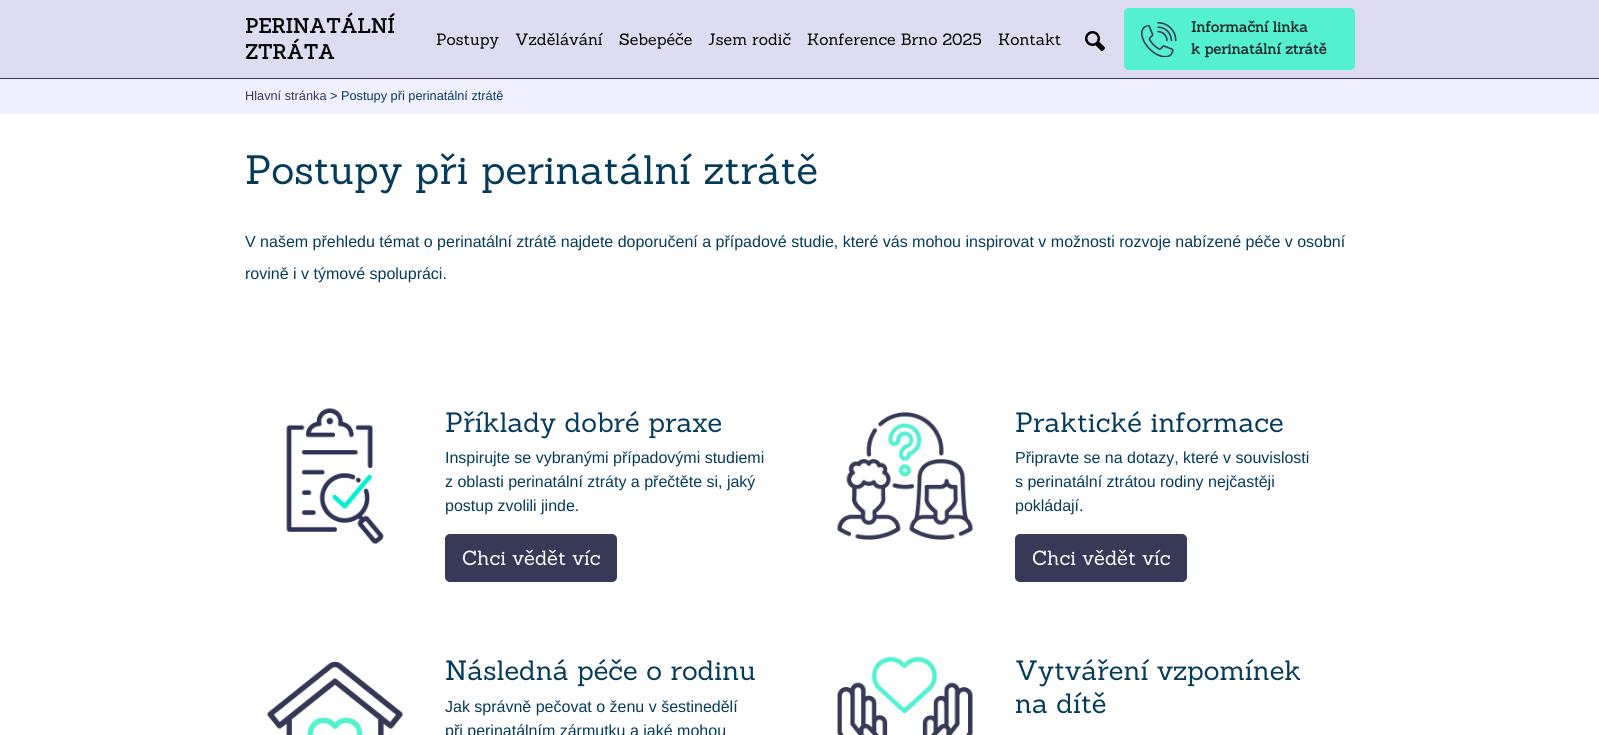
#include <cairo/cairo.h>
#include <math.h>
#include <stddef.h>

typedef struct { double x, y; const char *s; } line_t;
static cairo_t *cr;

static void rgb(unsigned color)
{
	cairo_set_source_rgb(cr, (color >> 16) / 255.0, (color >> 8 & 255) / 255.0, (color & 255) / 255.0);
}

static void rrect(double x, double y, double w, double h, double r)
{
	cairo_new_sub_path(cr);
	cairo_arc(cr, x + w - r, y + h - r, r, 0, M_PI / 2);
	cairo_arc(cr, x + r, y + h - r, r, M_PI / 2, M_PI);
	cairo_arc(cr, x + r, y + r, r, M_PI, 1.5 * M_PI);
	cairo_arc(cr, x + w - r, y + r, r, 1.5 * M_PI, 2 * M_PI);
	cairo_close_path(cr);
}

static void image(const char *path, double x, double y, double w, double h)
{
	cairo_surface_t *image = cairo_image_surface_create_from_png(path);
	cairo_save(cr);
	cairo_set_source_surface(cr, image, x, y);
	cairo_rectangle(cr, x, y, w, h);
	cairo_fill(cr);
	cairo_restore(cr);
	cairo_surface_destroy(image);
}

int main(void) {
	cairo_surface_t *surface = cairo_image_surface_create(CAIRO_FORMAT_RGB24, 1599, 735);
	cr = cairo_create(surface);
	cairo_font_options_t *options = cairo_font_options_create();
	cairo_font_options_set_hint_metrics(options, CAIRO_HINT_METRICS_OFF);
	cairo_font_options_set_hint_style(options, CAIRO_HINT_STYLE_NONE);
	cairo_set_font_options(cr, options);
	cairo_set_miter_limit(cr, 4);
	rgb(0xffffff);
	cairo_paint(cr);
	rgb(0xdedcf1);
	cairo_rectangle(cr, 0, 0, 1599, 78);
	cairo_fill(cr);
	rgb(0x363958);
	cairo_rectangle(cr, 0, 78, 1599, 1);
	cairo_fill(cr);
	image("img/1.png", 1085, 31, 20, 20);
	rgb(0x53f1d0);
	rrect(1124, 8, 231, 62, 5);
	cairo_fill(cr);
	image("img/2.png", 1141, 22, 36, 35);
	rgb(0xf0effd);
	cairo_rectangle(cr, 0, 79, 1599, 35);
	cairo_fill(cr);
	image("img/3.png", 286, 408, 98, 136);
	rgb(0x383957);
	rrect(445.5, 534.5, 171, 47, 4.5);
	cairo_fill_preserve(cr);
	cairo_set_line_width(cr, 1);
	cairo_stroke(cr);
	image("img/4.png", 837, 412, 136, 128);
	rrect(1015.5, 534.5, 171, 47, 4.5);
	cairo_fill_preserve(cr);
	cairo_stroke(cr);
	image("img/5.png", 267, 661, 136, 74);
	image("img/6.png", 837, 656, 136, 79);
	cairo_select_font_face(cr, "Sanchez", CAIRO_FONT_SLANT_NORMAL, CAIRO_FONT_WEIGHT_BOLD);
	cairo_set_font_size(cr, 20);
	rgb(0x000000);
	cairo_move_to(cr, 245, 33);
	cairo_show_text(cr, "PERINATÁLNÍ");
	cairo_move_to(cr, 245, 59);
	cairo_show_text(cr, "ZTRÁTA");
	cairo_select_font_face(cr, "Sanchez", CAIRO_FONT_SLANT_NORMAL, CAIRO_FONT_WEIGHT_NORMAL);
	cairo_set_font_size(cr, 16);
	{
		static const line_t items[] = {
			{436, 45, "Postupy"},
			{515, 45, "Vzdělávání"},
			{619, 45, "Sebepéče"},
			{708, 45, "Jsem rodič"},
			{807, 45, "Konference Brno 2025"},
			{998, 45, "Kontakt"},
		};
		for (size_t i = 0; i < sizeof items / sizeof *items; i++) {
			cairo_move_to(cr, items[i].x, items[i].y);
			cairo_show_text(cr, items[i].s);
		}
	}
	cairo_select_font_face(cr, "Sanchez", CAIRO_FONT_SLANT_NORMAL, CAIRO_FONT_WEIGHT_BOLD);
	cairo_set_font_size(cr, 14.5);
	rgb(0x212529);
	cairo_move_to(cr, 1191, 32);
	cairo_show_text(cr, "Informační linka");
	cairo_move_to(cr, 1191, 54);
	cairo_show_text(cr, "k perinatální ztrátě");
	cairo_select_font_face(cr, "Liberation Sans", CAIRO_FONT_SLANT_NORMAL, CAIRO_FONT_WEIGHT_NORMAL);
	cairo_set_font_size(cr, 12.75);
	rgb(0x363a57);
	cairo_move_to(cr, 245, 100);
	cairo_show_text(cr, "Hlavní stránka");
	rgb(0x033b5c);
	cairo_move_to(cr, 330, 100);
	cairo_show_text(cr, "> Postupy při perinatální ztrátě");
	cairo_select_font_face(cr, "Sanchez", CAIRO_FONT_SLANT_NORMAL, CAIRO_FONT_WEIGHT_NORMAL);
	cairo_set_font_size(cr, 40);
	cairo_move_to(cr, 245, 184);
	cairo_show_text(cr, "Postupy při perinatální ztrátě");
	cairo_select_font_face(cr, "Liberation Sans", CAIRO_FONT_SLANT_NORMAL, CAIRO_FONT_WEIGHT_NORMAL);
	cairo_set_font_size(cr, 16);
	cairo_move_to(cr, 245, 247);
	cairo_show_text(cr, "V našem přehledu témat o perinatální ztrátě najdete doporučení a případové studie, které vás mohou inspirovat v možnosti rozvoje nabízené péče v osobní");
	cairo_move_to(cr, 245, 279);
	cairo_show_text(cr, "rovině i v týmové spolupráci.");
	cairo_select_font_face(cr, "Sanchez", CAIRO_FONT_SLANT_NORMAL, CAIRO_FONT_WEIGHT_NORMAL);
	cairo_set_font_size(cr, 27.25);
	cairo_move_to(cr, 445, 432);
	cairo_show_text(cr, "Příklady dobré praxe");
	cairo_select_font_face(cr, "Liberation Sans", CAIRO_FONT_SLANT_NORMAL, CAIRO_FONT_WEIGHT_NORMAL);
	cairo_set_font_size(cr, 16);
	{
		static const line_t items[] = {
			{445, 463, "Inspirujte se vybranými případovými studiemi"},
			{445, 487, "z oblasti perinatální ztráty a přečtěte si, jaký"},
			{445, 511, "postup zvolili jinde."},
		};
		for (size_t i = 0; i < sizeof items / sizeof *items; i++) {
			cairo_move_to(cr, items[i].x, items[i].y);
			cairo_show_text(cr, items[i].s);
		}
	}
	cairo_select_font_face(cr, "Sanchez", CAIRO_FONT_SLANT_NORMAL, CAIRO_FONT_WEIGHT_NORMAL);
	cairo_set_font_size(cr, 20);
	rgb(0xffffff);
	cairo_move_to(cr, 462, 565);
	cairo_show_text(cr, "Chci vědět víc");
	cairo_set_font_size(cr, 27.25);
	rgb(0x033b5c);
	cairo_move_to(cr, 1015, 432);
	cairo_show_text(cr, "Praktické informace");
	cairo_select_font_face(cr, "Liberation Sans", CAIRO_FONT_SLANT_NORMAL, CAIRO_FONT_WEIGHT_NORMAL);
	cairo_set_font_size(cr, 16);
	{
		static const line_t items[] = {
			{1015, 463, "Připravte se na dotazy, které v souvislosti"},
			{1015, 487, "s perinatální ztrátou rodiny nejčastěji"},
			{1015, 511, "pokládají."},
		};
		for (size_t i = 0; i < sizeof items / sizeof *items; i++) {
			cairo_move_to(cr, items[i].x, items[i].y);
			cairo_show_text(cr, items[i].s);
		}
	}
	cairo_select_font_face(cr, "Sanchez", CAIRO_FONT_SLANT_NORMAL, CAIRO_FONT_WEIGHT_NORMAL);
	cairo_set_font_size(cr, 20);
	rgb(0xffffff);
	cairo_move_to(cr, 1032, 565);
	cairo_show_text(cr, "Chci vědět víc");
	cairo_set_font_size(cr, 27.25);
	rgb(0x033b5c);
	cairo_move_to(cr, 445, 680);
	cairo_show_text(cr, "Následná péče o rodinu");
	cairo_select_font_face(cr, "Liberation Sans", CAIRO_FONT_SLANT_NORMAL, CAIRO_FONT_WEIGHT_NORMAL);
	cairo_set_font_size(cr, 16);
	cairo_move_to(cr, 445, 712);
	cairo_show_text(cr, "Jak správně pečovat o ženu v šestinedělí");
	cairo_move_to(cr, 445, 736);
	cairo_show_text(cr, "při perinatálním zármutku a jaké mohou");
	cairo_select_font_face(cr, "Sanchez", CAIRO_FONT_SLANT_NORMAL, CAIRO_FONT_WEIGHT_NORMAL);
	cairo_set_font_size(cr, 27.25);
	cairo_move_to(cr, 1015, 680);
	cairo_show_text(cr, "Vytváření vzpomínek");
	cairo_move_to(cr, 1015, 713);
	cairo_show_text(cr, "na dítě");
	cairo_surface_write_to_png(surface, "page.png");
	cairo_font_options_destroy(options);
	cairo_destroy(cr);
	cairo_surface_destroy(surface);
	return 0;
}
